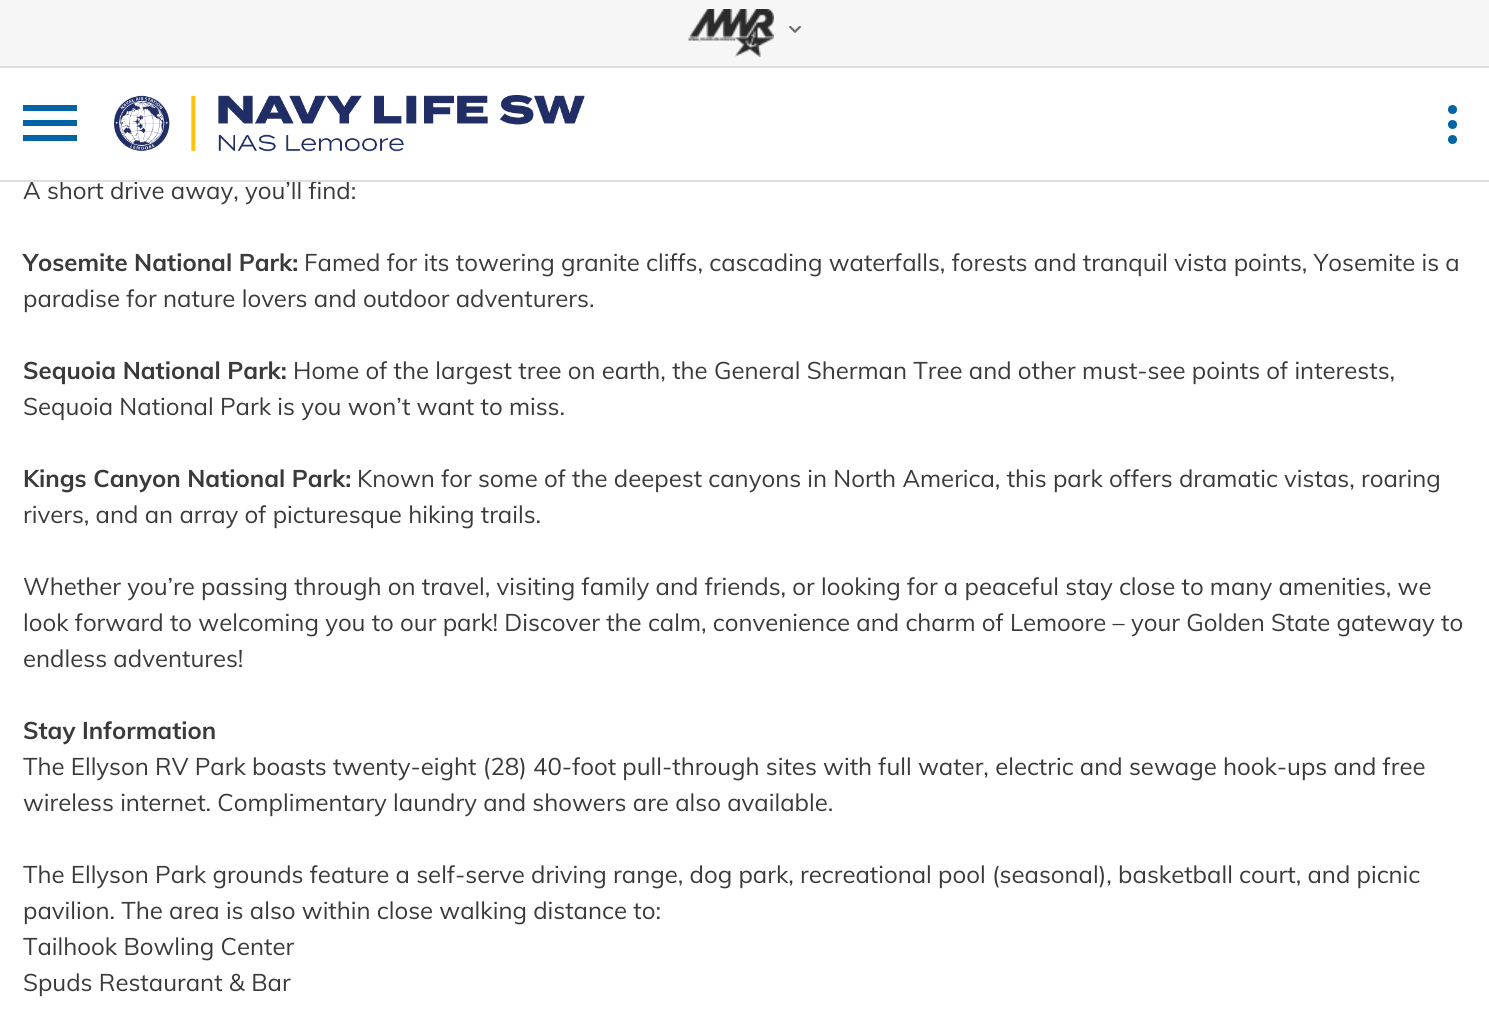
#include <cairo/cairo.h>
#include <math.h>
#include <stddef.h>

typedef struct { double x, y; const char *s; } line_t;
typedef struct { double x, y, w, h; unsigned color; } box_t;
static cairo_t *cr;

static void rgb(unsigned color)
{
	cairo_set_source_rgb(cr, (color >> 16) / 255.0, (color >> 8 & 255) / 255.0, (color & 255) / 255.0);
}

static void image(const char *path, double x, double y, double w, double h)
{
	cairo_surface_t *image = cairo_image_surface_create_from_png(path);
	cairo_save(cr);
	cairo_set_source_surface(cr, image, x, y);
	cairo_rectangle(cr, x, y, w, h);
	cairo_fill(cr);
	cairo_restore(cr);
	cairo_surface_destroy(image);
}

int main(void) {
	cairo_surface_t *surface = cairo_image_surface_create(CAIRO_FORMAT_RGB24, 1489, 1012);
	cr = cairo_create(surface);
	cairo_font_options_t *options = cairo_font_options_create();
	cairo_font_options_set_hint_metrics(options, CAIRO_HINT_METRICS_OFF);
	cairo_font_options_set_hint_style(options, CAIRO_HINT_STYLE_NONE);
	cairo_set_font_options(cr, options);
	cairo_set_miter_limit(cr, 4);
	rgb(0xffffff);
	cairo_paint(cr);
	rgb(0xf6f6f7);
	cairo_rectangle(cr, 0, 0, 1489, 66);
	cairo_fill(cr);
	image("img/1.png", 688, 9, 86, 48);
	image("img/2.png", 789, 26, 12, 7);
	{
		static const box_t items[] = {
			{0, 66, 1489, 2, 0xdddddd},
			{23, 105, 54, 6, 0x0164a5},
			{23, 120, 54, 6, 0x0164a5},
			{23, 135, 54, 6, 0x0164a5},
		};
		for (size_t i = 0; i < sizeof items / sizeof *items; i++) {
			rgb(items[i].color);
			cairo_rectangle(cr, items[i].x, items[i].y, items[i].w, items[i].h);
			cairo_fill(cr);
		}
	}
	image("img/3.png", 114, 95, 471, 57);
	cairo_arc(cr, 1452.5, 109.5, 4.5, 0, 2 * M_PI);
	cairo_fill(cr);
	cairo_arc(cr, 1452.5, 124.5, 4.5, 0, 2 * M_PI);
	cairo_fill(cr);
	cairo_arc(cr, 1452.5, 139.5, 4.5, 0, 2 * M_PI);
	cairo_fill(cr);
	cairo_select_font_face(cr, "Muli", CAIRO_FONT_SLANT_NORMAL, CAIRO_FONT_WEIGHT_NORMAL);
	cairo_set_font_size(cr, 24);
	rgb(0x3a3a3a);
	cairo_move_to(cr, 23, 199);
	cairo_show_text(cr, "A short drive away, you’ll find:");
	rgb(0xdddddd);
	cairo_rectangle(cr, 0, 180, 1489, 2);
	cairo_fill(cr);
	cairo_select_font_face(cr, "Muli", CAIRO_FONT_SLANT_NORMAL, CAIRO_FONT_WEIGHT_BOLD);
	rgb(0x3a3a3a);
	cairo_move_to(cr, 23, 271);
	cairo_show_text(cr, "Yosemite National Park:");
	cairo_select_font_face(cr, "Muli", CAIRO_FONT_SLANT_NORMAL, CAIRO_FONT_WEIGHT_NORMAL);
	cairo_move_to(cr, 304, 271);
	cairo_show_text(cr, "Famed for its towering granite cliffs, cascading waterfalls, forests and tranquil vista points, Yosemite is a");
	cairo_move_to(cr, 23, 307);
	cairo_show_text(cr, "paradise for nature lovers and outdoor adventurers.");
	cairo_select_font_face(cr, "Muli", CAIRO_FONT_SLANT_NORMAL, CAIRO_FONT_WEIGHT_BOLD);
	cairo_move_to(cr, 23, 379);
	cairo_show_text(cr, "Sequoia National Park:");
	cairo_select_font_face(cr, "Muli", CAIRO_FONT_SLANT_NORMAL, CAIRO_FONT_WEIGHT_NORMAL);
	cairo_move_to(cr, 293, 379);
	cairo_show_text(cr, "Home of the largest tree on earth, the General Sherman Tree and other must-see points of interests,");
	cairo_move_to(cr, 23, 415);
	cairo_show_text(cr, "Sequoia National Park is you won’t want to miss.");
	cairo_select_font_face(cr, "Muli", CAIRO_FONT_SLANT_NORMAL, CAIRO_FONT_WEIGHT_BOLD);
	cairo_move_to(cr, 23, 487);
	cairo_show_text(cr, "Kings Canyon National Park:");
	cairo_select_font_face(cr, "Muli", CAIRO_FONT_SLANT_NORMAL, CAIRO_FONT_WEIGHT_NORMAL);
	{
		static const line_t items[] = {
			{357, 487, "Known for some of the deepest canyons in North America, this park offers dramatic vistas, roaring"},
			{23, 523, "rivers, and an array of picturesque hiking trails."},
			{23, 595, "Whether you’re passing through on travel, visiting family and friends, or looking for a peaceful stay close to many amenities, we"},
			{23, 631, "look forward to welcoming you to our park! Discover the calm, convenience and charm of Lemoore – your Golden State gateway to"},
			{23, 667, "endless adventures!"},
		};
		for (size_t i = 0; i < sizeof items / sizeof *items; i++) {
			cairo_move_to(cr, items[i].x, items[i].y);
			cairo_show_text(cr, items[i].s);
		}
	}
	cairo_select_font_face(cr, "Muli", CAIRO_FONT_SLANT_NORMAL, CAIRO_FONT_WEIGHT_BOLD);
	cairo_move_to(cr, 23, 739);
	cairo_show_text(cr, "Stay Information");
	cairo_select_font_face(cr, "Muli", CAIRO_FONT_SLANT_NORMAL, CAIRO_FONT_WEIGHT_NORMAL);
	{
		static const line_t items[] = {
			{23, 775, "The Ellyson RV Park boasts twenty-eight (28) 40-foot pull-through sites with full water, electric and sewage hook-ups and free"},
			{23, 811, "wireless internet. Complimentary laundry and showers are also available."},
			{23, 883, "The Ellyson Park grounds feature a self-serve driving range, dog park, recreational pool (seasonal), basketball court, and picnic"},
			{23, 919, "pavilion. The area is also within close walking distance to:"},
			{23, 955, "Tailhook Bowling Center"},
			{23, 991, "Spuds Restaurant & Bar"},
		};
		for (size_t i = 0; i < sizeof items / sizeof *items; i++) {
			cairo_move_to(cr, items[i].x, items[i].y);
			cairo_show_text(cr, items[i].s);
		}
	}
	cairo_surface_write_to_png(surface, "page.png");
	cairo_font_options_destroy(options);
	cairo_destroy(cr);
	cairo_surface_destroy(surface);
	return 0;
}
